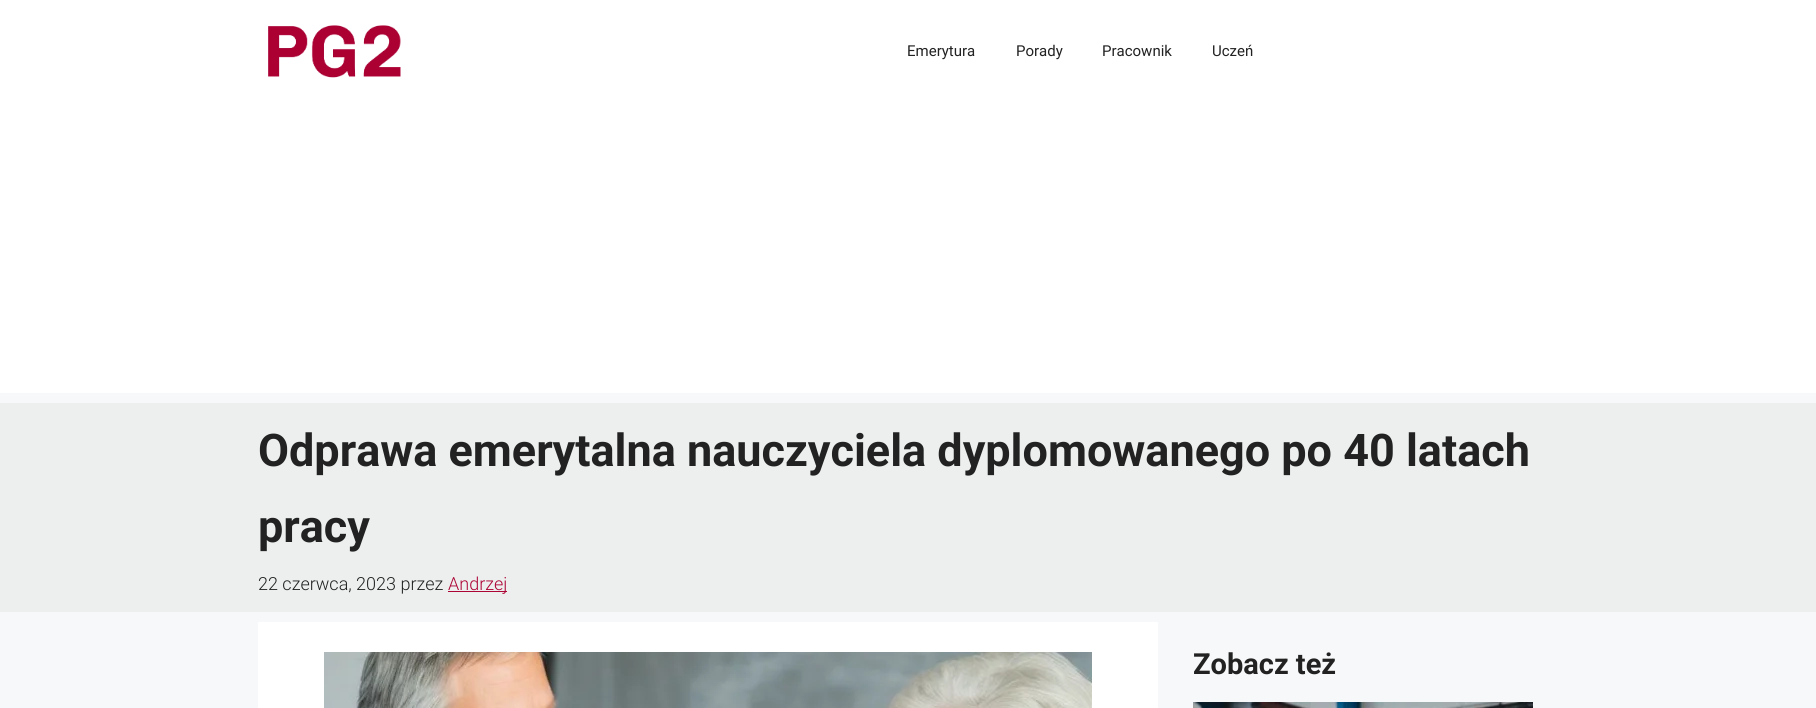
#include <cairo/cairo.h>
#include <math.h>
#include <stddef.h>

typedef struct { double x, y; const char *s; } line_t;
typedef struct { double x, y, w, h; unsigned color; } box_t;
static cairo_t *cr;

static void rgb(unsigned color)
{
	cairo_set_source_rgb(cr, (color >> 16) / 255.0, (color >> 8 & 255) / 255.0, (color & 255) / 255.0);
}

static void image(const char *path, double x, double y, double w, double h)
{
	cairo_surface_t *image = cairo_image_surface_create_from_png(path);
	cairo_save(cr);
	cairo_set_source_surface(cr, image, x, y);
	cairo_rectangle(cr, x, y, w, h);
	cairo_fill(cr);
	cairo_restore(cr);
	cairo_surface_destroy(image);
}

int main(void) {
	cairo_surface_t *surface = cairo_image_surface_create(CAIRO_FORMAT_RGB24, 1816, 708);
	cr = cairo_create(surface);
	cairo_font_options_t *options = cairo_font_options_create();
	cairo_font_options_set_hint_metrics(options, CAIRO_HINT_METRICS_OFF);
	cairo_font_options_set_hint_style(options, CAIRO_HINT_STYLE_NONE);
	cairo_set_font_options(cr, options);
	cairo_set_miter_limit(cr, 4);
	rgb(0xf7f8f9);
	cairo_paint(cr);
	rgb(0xffffff);
	cairo_rectangle(cr, 0, 0, 1816, 393);
	cairo_fill(cr);
	image("img/1.png", 268, 25, 133, 53);
	{
		static const box_t items[] = {
			{0, 403, 1816, 209, 0xedefef},
			{448, 591, 59, 1, 0xac0434},
			{258, 622, 900, 86, 0xffffff},
		};
		for (size_t i = 0; i < sizeof items / sizeof *items; i++) {
			rgb(items[i].color);
			cairo_rectangle(cr, items[i].x, items[i].y, items[i].w, items[i].h);
			cairo_fill(cr);
		}
	}
	image("img/2.png", 324, 652, 768, 56);
	image("img/3.png", 1193, 702, 340, 6);
	cairo_select_font_face(cr, "Roboto", CAIRO_FONT_SLANT_NORMAL, CAIRO_FONT_WEIGHT_NORMAL);
	cairo_set_font_size(cr, 15);
	rgb(0x222222);
	{
		static const line_t items[] = {
			{907, 56, "Emerytura"},
			{1016, 56, "Porady"},
			{1102, 56, "Pracownik"},
			{1212, 56, "Uczeń"},
		};
		for (size_t i = 0; i < sizeof items / sizeof *items; i++) {
			cairo_move_to(cr, items[i].x, items[i].y);
			cairo_show_text(cr, items[i].s);
		}
	}
	cairo_select_font_face(cr, "Roboto", CAIRO_FONT_SLANT_NORMAL, CAIRO_FONT_WEIGHT_BOLD);
	cairo_set_font_size(cr, 45);
	cairo_move_to(cr, 258, 466);
	cairo_show_text(cr, "Odprawa emerytalna nauczyciela dyplomowanego po 40 latach");
	cairo_move_to(cr, 258, 542);
	cairo_show_text(cr, "pracy");
	cairo_select_font_face(cr, "Roboto Light", CAIRO_FONT_SLANT_NORMAL, CAIRO_FONT_WEIGHT_NORMAL);
	cairo_set_font_size(cr, 18);
	cairo_move_to(cr, 258, 590);
	cairo_show_text(cr, "22 czerwca, 2023 przez");
	rgb(0xac0434);
	cairo_move_to(cr, 448, 590);
	cairo_show_text(cr, "Andrzej");
	cairo_select_font_face(cr, "Roboto", CAIRO_FONT_SLANT_NORMAL, CAIRO_FONT_WEIGHT_BOLD);
	cairo_set_font_size(cr, 29);
	rgb(0x222222);
	cairo_move_to(cr, 1193, 674);
	cairo_show_text(cr, "Zobacz też");
	cairo_surface_write_to_png(surface, "page.png");
	cairo_font_options_destroy(options);
	cairo_destroy(cr);
	cairo_surface_destroy(surface);
	return 0;
}
